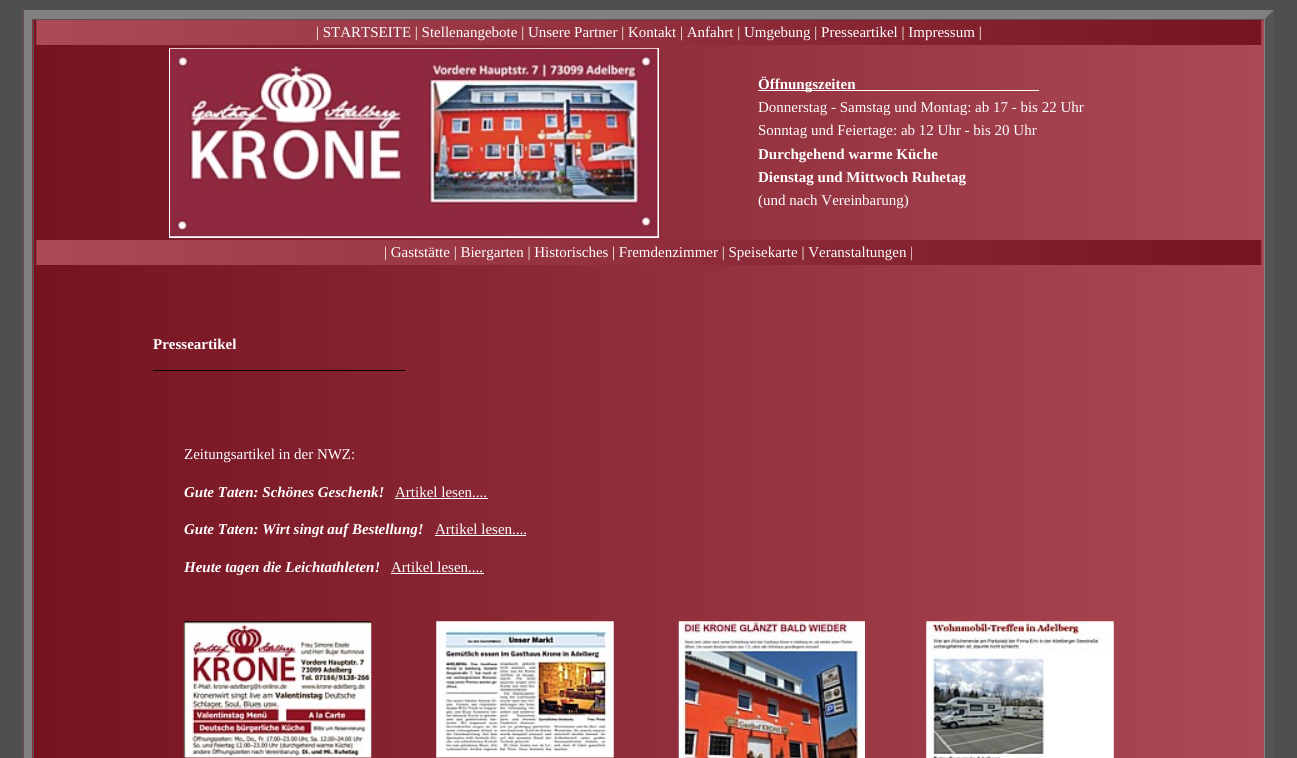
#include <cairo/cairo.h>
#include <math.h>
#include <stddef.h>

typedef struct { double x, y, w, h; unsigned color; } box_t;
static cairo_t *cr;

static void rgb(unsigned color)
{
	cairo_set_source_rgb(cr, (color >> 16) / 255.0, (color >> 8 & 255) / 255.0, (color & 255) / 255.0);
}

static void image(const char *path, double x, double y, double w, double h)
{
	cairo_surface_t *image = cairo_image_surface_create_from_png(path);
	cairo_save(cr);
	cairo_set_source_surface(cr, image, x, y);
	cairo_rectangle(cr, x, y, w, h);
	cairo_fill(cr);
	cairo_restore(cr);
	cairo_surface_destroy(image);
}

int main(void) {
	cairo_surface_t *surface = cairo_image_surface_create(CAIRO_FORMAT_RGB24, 1297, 758);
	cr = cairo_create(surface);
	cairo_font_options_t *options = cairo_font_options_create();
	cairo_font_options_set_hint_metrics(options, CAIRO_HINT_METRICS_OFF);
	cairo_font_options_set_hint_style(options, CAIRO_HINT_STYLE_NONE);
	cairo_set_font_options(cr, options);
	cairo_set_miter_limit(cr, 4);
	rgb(0x4f4f4f);
	cairo_paint(cr);
	image("img/1.png", 23, 10, 1251, 748);
	rgb(0x808080);
	cairo_new_path(cr);
	cairo_move_to(cr, 24, 10);
	cairo_line_to(cr, 1274, 10);
	cairo_line_to(cr, 1265, 19);
	cairo_line_to(cr, 32, 19);
	cairo_close_path(cr);
	cairo_fill(cr);
	rgb(0x555555);
	cairo_new_path(cr);
	cairo_move_to(cr, 1274, 10);
	cairo_line_to(cr, 1274, 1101);
	cairo_line_to(cr, 1265, 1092);
	cairo_line_to(cr, 1265, 19);
	cairo_close_path(cr);
	cairo_fill(cr);
	rgb(0x808080);
	cairo_new_path(cr);
	cairo_move_to(cr, 24, 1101);
	cairo_line_to(cr, 24, 10);
	cairo_line_to(cr, 32, 19);
	cairo_line_to(cr, 32, 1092);
	cairo_close_path(cr);
	cairo_fill(cr);
	{
		static const box_t items[] = {
			{33, 19, 1232, 1, 0x555555},
			{1264, 19, 1, 739, 0x808080},
			{33, 19, 1, 739, 0x555555},
		};
		for (size_t i = 0; i < sizeof items / sizeof *items; i++) {
			rgb(items[i].color);
			cairo_rectangle(cr, items[i].x, items[i].y, items[i].w, items[i].h);
			cairo_fill(cr);
		}
	}
	image("img/2.png", 36, 20, 1226, 25);
	rgb(0xffffff);
	cairo_rectangle(cr, 169, 48, 490, 190);
	cairo_fill(cr);
	image("img/3.png", 170, 48, 488, 189);
	cairo_rectangle(cr, 758, 90, 281, 1);
	cairo_fill(cr);
	image("img/2.png", 36, 240, 1226, 25);
	{
		static const box_t items[] = {
			{153, 370, 252, 1, 0x000000},
			{395, 498, 93, 1, 0xffffff},
			{435, 535, 91, 1, 0xffffff},
			{391, 573, 93, 1, 0xffffff},
		};
		for (size_t i = 0; i < sizeof items / sizeof *items; i++) {
			rgb(items[i].color);
			cairo_rectangle(cr, items[i].x, items[i].y, items[i].w, items[i].h);
			cairo_fill(cr);
		}
	}
	image("img/4.png", 183, 621, 189, 137);
	image("img/5.png", 436, 621, 178, 137);
	image("img/6.png", 678, 621, 187, 137);
	image("img/7.png", 926, 621, 188, 137);
	cairo_select_font_face(cr, "Liberation Serif", CAIRO_FONT_SLANT_NORMAL, CAIRO_FONT_WEIGHT_NORMAL);
	cairo_set_font_size(cr, 15);
	cairo_move_to(cr, 316, 37);
	cairo_show_text(cr, "| STARTSEITE | Stellenangebote | Unsere Partner | Kontakt | Anfahrt | Umgebung | Presseartikel | Impressum |");
	cairo_select_font_face(cr, "Liberation Serif", CAIRO_FONT_SLANT_NORMAL, CAIRO_FONT_WEIGHT_BOLD);
	cairo_move_to(cr, 758, 89);
	cairo_show_text(cr, "Öffnungszeiten");
	cairo_select_font_face(cr, "Liberation Serif", CAIRO_FONT_SLANT_NORMAL, CAIRO_FONT_WEIGHT_NORMAL);
	cairo_move_to(cr, 758, 112);
	cairo_show_text(cr, "Donnerstag - Samstag und Montag: ab 17 - bis 22 Uhr");
	cairo_move_to(cr, 758, 135);
	cairo_show_text(cr, "Sonntag und Feiertage: ab 12 Uhr - bis 20 Uhr");
	cairo_select_font_face(cr, "Liberation Serif", CAIRO_FONT_SLANT_NORMAL, CAIRO_FONT_WEIGHT_BOLD);
	cairo_move_to(cr, 758, 159);
	cairo_show_text(cr, "Durchgehend warme Küche");
	cairo_move_to(cr, 758, 182);
	cairo_show_text(cr, "Dienstag und Mittwoch Ruhetag");
	cairo_select_font_face(cr, "Liberation Serif", CAIRO_FONT_SLANT_NORMAL, CAIRO_FONT_WEIGHT_NORMAL);
	cairo_move_to(cr, 758, 205);
	cairo_show_text(cr, "(und nach Vereinbarung)");
	cairo_move_to(cr, 384, 257);
	cairo_show_text(cr, "| Gaststätte | Biergarten | Historisches | Fremdenzimmer | Speisekarte | Veranstaltungen |");
	cairo_select_font_face(cr, "Liberation Serif", CAIRO_FONT_SLANT_NORMAL, CAIRO_FONT_WEIGHT_BOLD);
	cairo_move_to(cr, 153, 349);
	cairo_show_text(cr, "Presseartikel");
	cairo_select_font_face(cr, "Liberation Serif", CAIRO_FONT_SLANT_NORMAL, CAIRO_FONT_WEIGHT_NORMAL);
	cairo_move_to(cr, 184, 459);
	cairo_show_text(cr, "Zeitungsartikel in der NWZ:");
	cairo_select_font_face(cr, "Liberation Serif", CAIRO_FONT_SLANT_ITALIC, CAIRO_FONT_WEIGHT_BOLD);
	cairo_move_to(cr, 184, 497);
	cairo_show_text(cr, "Gute Taten: Schönes Geschenk!");
	cairo_select_font_face(cr, "Liberation Serif", CAIRO_FONT_SLANT_NORMAL, CAIRO_FONT_WEIGHT_NORMAL);
	cairo_move_to(cr, 395, 497);
	cairo_show_text(cr, "Artikel lesen....");
	cairo_select_font_face(cr, "Liberation Serif", CAIRO_FONT_SLANT_ITALIC, CAIRO_FONT_WEIGHT_BOLD);
	cairo_move_to(cr, 184, 534);
	cairo_show_text(cr, "Gute Taten: Wirt singt auf Bestellung!");
	cairo_select_font_face(cr, "Liberation Serif", CAIRO_FONT_SLANT_NORMAL, CAIRO_FONT_WEIGHT_NORMAL);
	cairo_move_to(cr, 435, 534);
	cairo_show_text(cr, "Artikel lesen....");
	cairo_select_font_face(cr, "Liberation Serif", CAIRO_FONT_SLANT_ITALIC, CAIRO_FONT_WEIGHT_BOLD);
	cairo_move_to(cr, 184, 572);
	cairo_show_text(cr, "Heute tagen die Leichtathleten!");
	cairo_select_font_face(cr, "Liberation Serif", CAIRO_FONT_SLANT_NORMAL, CAIRO_FONT_WEIGHT_NORMAL);
	cairo_move_to(cr, 391, 572);
	cairo_show_text(cr, "Artikel lesen....");
	cairo_surface_write_to_png(surface, "page.png");
	cairo_font_options_destroy(options);
	cairo_destroy(cr);
	cairo_surface_destroy(surface);
	return 0;
}
